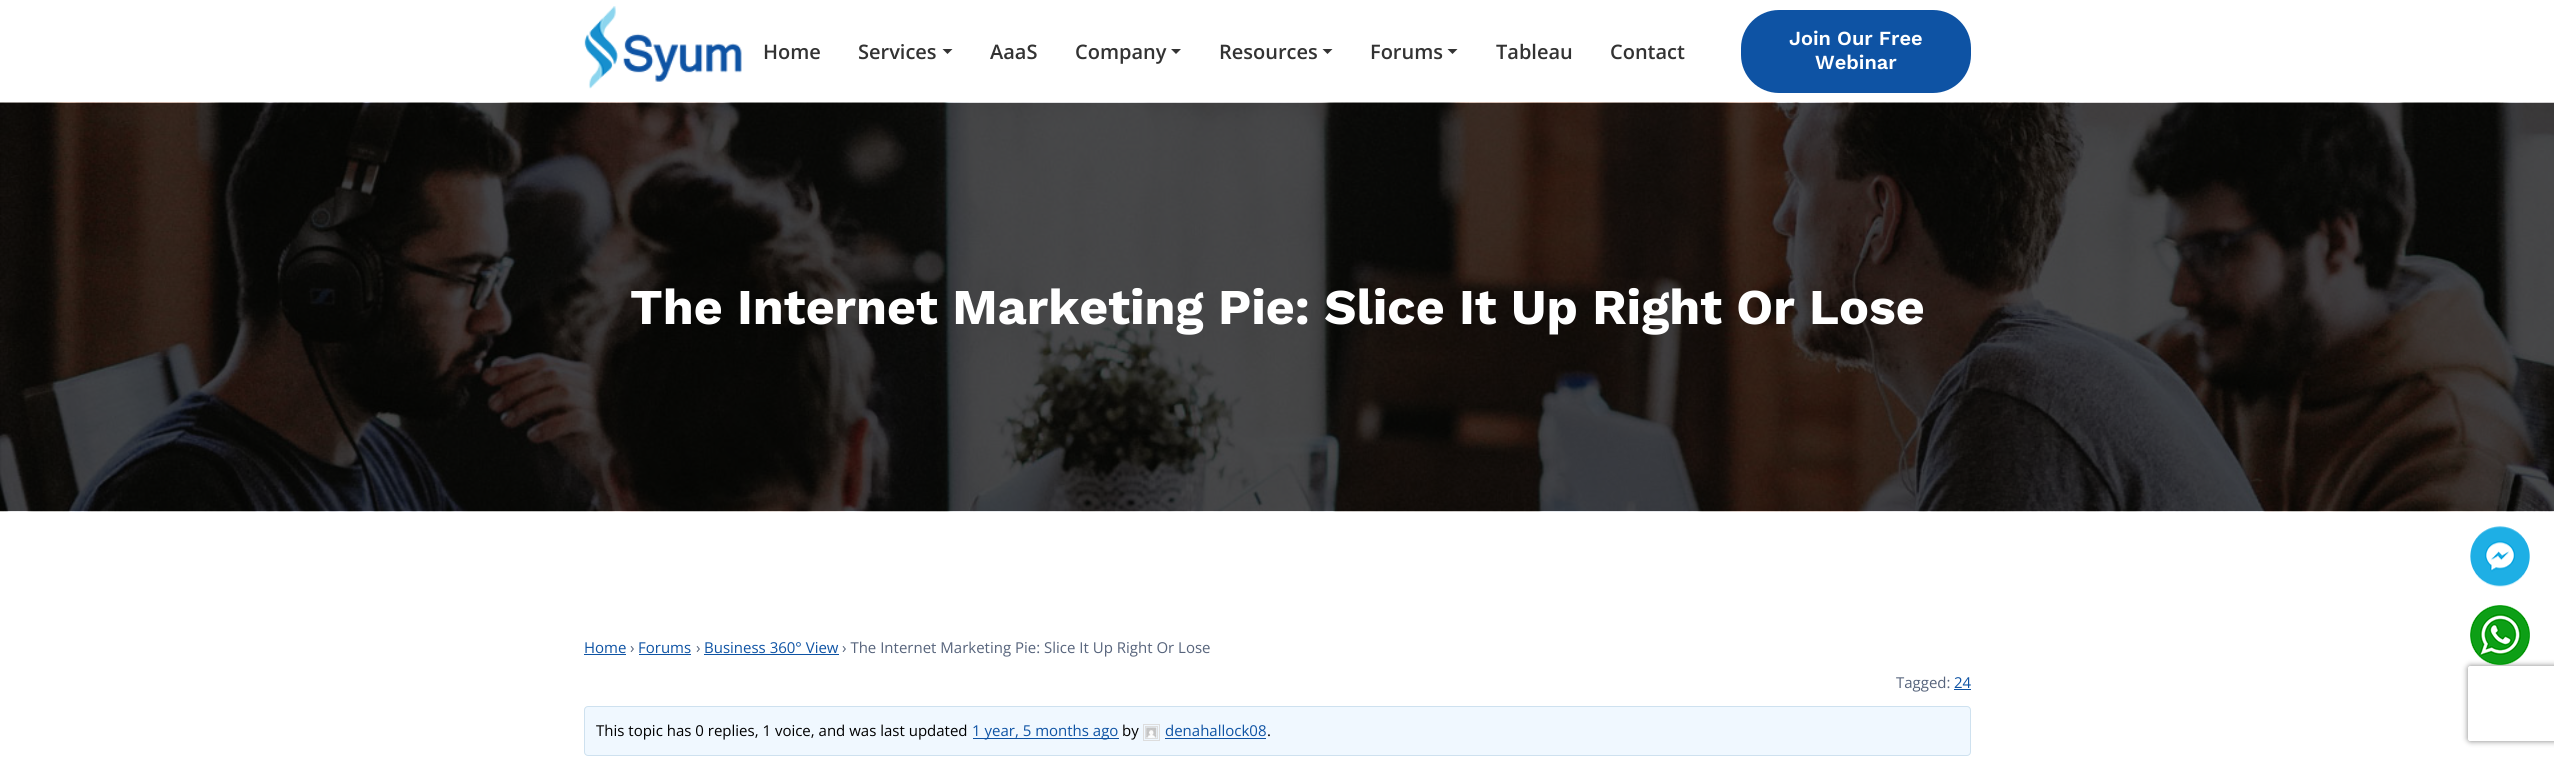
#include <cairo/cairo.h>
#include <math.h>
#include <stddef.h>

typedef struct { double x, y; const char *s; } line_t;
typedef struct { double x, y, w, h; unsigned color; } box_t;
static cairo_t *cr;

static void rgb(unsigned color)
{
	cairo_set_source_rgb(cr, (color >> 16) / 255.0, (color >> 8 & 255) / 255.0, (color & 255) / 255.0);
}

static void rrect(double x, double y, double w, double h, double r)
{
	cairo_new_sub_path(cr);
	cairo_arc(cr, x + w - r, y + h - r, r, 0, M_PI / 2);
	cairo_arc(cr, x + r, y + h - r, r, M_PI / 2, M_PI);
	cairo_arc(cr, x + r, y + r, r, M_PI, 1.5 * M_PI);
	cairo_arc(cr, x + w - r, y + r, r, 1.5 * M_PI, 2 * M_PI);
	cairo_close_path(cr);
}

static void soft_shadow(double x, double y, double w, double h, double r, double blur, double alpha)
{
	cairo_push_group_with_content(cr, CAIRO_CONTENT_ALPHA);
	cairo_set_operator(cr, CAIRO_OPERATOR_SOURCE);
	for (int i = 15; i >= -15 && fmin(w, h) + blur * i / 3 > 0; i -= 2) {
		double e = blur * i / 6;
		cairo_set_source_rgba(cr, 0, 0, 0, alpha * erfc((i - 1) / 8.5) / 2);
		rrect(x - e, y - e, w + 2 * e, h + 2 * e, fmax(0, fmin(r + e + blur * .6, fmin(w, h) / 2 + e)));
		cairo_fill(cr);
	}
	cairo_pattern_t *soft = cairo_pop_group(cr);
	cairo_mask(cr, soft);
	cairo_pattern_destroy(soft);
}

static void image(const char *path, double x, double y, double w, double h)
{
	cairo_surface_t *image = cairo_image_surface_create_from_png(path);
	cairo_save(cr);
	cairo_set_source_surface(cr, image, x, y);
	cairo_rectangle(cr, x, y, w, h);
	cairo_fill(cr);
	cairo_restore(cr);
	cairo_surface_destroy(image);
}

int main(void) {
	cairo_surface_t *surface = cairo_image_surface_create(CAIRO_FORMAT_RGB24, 2554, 758);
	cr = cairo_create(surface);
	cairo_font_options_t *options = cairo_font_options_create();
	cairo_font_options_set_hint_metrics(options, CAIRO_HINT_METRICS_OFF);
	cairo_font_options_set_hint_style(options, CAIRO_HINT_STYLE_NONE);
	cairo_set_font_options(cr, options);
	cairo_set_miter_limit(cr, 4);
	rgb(0xffffff);
	cairo_paint(cr);
	image("img/1.png", 584, 6, 158, 83);
	rgb(0x333333);
	cairo_new_path(cr);
	cairo_move_to(cr, 942.5, 49);
	cairo_line_to(cr, 952.5, 49);
	cairo_line_to(cr, 947.5, 54);
	cairo_close_path(cr);
	cairo_fill(cr);
	cairo_new_path(cr);
	cairo_move_to(cr, 1171, 49);
	cairo_line_to(cr, 1181, 49);
	cairo_line_to(cr, 1176, 54);
	cairo_close_path(cr);
	cairo_fill(cr);
	cairo_new_path(cr);
	cairo_move_to(cr, 1322.5, 49);
	cairo_line_to(cr, 1332.5, 49);
	cairo_line_to(cr, 1327.5, 54);
	cairo_close_path(cr);
	cairo_fill(cr);
	cairo_new_path(cr);
	cairo_move_to(cr, 1447.5, 49);
	cairo_line_to(cr, 1457.5, 49);
	cairo_line_to(cr, 1452.5, 54);
	cairo_close_path(cr);
	cairo_fill(cr);
	rgb(0x0e53a4);
	rrect(1741, 10, 230, 83, 38);
	cairo_fill(cr);
	image("img/2.png", 0, 102, 2554, 410);
	image("img/3.png", 2470, 526, 60, 61);
	cairo_save(cr);
	cairo_set_fill_rule(cr, CAIRO_FILL_RULE_EVEN_ODD);
	cairo_new_path(cr);
	cairo_move_to(cr, 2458, 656);
	cairo_line_to(cr, 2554, 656);
	cairo_line_to(cr, 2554, 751);
	cairo_line_to(cr, 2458, 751);
	cairo_close_path(cr);
	cairo_move_to(cr, 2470.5, 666);
	cairo_line_to(cr, 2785.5, 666);
	cairo_curve_to(cr, 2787, 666, 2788, 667, 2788, 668.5);
	cairo_line_to(cr, 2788, 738.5);
	cairo_curve_to(cr, 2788, 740, 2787, 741, 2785.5, 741);
	cairo_line_to(cr, 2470.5, 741);
	cairo_curve_to(cr, 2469, 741, 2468, 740, 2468, 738.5);
	cairo_line_to(cr, 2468, 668.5);
	cairo_curve_to(cr, 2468, 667, 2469, 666, 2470.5, 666);
	cairo_close_path(cr);
	cairo_clip(cr);
	rgb(0x808080);
	soft_shadow(2468, 666, 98, 75, 2.5, 3, 1);
	cairo_restore(cr);
	image("img/4.png", 2470, 605, 60, 60);
	{
		static const box_t items[] = {
			{584, 654, 42, 1, 0x0e53a4},
			{639, 654, 52, 1, 0x0e53a4},
			{704, 654, 135, 1, 0x0e53a4},
			{1954, 689, 17, 1, 0x0e53a4},
		};
		for (size_t i = 0; i < sizeof items / sizeof *items; i++) {
			rgb(items[i].color);
			cairo_rectangle(cr, items[i].x, items[i].y, items[i].w, items[i].h);
			cairo_fill(cr);
		}
	}
	rgb(0xf0f8ff);
	rrect(584.5, 706.5, 1386, 49, 3.5);
	cairo_fill_preserve(cr);
	rgb(0xcee1ef);
	cairo_set_line_width(cr, 1);
	cairo_stroke(cr);
	rgb(0x0e53a4);
	cairo_rectangle(cr, 973, 738, 146, 1);
	cairo_fill(cr);
	cairo_rectangle(cr, 1143.5, 724.5, 16, 16);
	rgb(0xdddddd);
	cairo_stroke(cr);
	cairo_rectangle(cr, 1145.5, 726.5, 12, 12);
	cairo_stroke(cr);
	image("img/5.png", 1146, 727, 11, 11);
	rgb(0x0e53a4);
	cairo_rectangle(cr, 1165, 738, 101, 1);
	cairo_fill(cr);
	cairo_select_font_face(cr, "Open Sans SemiBold", CAIRO_FONT_SLANT_NORMAL, CAIRO_FONT_WEIGHT_NORMAL);
	cairo_set_font_size(cr, 20);
	rgb(0x333333);
	{
		static const line_t items[] = {
			{763, 59, "Home"},
			{858, 59, "Services"},
			{990, 59, "AaaS"},
			{1075, 59, "Company"},
			{1219, 59, "Resources"},
			{1370, 59, "Forums"},
			{1496, 59, "Tableau"},
			{1610, 59, "Contact"},
		};
		for (size_t i = 0; i < sizeof items / sizeof *items; i++) {
			cairo_move_to(cr, items[i].x, items[i].y);
			cairo_show_text(cr, items[i].s);
		}
	}
	cairo_select_font_face(cr, "Work Sans SemiBold", CAIRO_FONT_SLANT_NORMAL, CAIRO_FONT_WEIGHT_NORMAL);
	rgb(0xffffff);
	cairo_move_to(cr, 1789, 45);
	cairo_show_text(cr, "Join Our Free");
	cairo_move_to(cr, 1815, 69);
	cairo_show_text(cr, "Webinar");
	cairo_select_font_face(cr, "Work Sans", CAIRO_FONT_SLANT_NORMAL, CAIRO_FONT_WEIGHT_BOLD);
	cairo_set_font_size(cr, 50);
	cairo_move_to(cr, 630, 324);
	cairo_show_text(cr, "The Internet Marketing Pie: Slice It Up Right Or Lose");
	cairo_select_font_face(cr, "Open Sans", CAIRO_FONT_SLANT_NORMAL, CAIRO_FONT_WEIGHT_NORMAL);
	cairo_set_font_size(cr, 15);
	rgb(0x0e53a4);
	cairo_move_to(cr, 584, 653);
	cairo_show_text(cr, "Home");
	rgb(0x57647c);
	cairo_move_to(cr, 630, 653);
	cairo_show_text(cr, "›");
	rgb(0x0e53a4);
	cairo_move_to(cr, 638, 653);
	cairo_show_text(cr, "Forums");
	rgb(0x57647c);
	cairo_move_to(cr, 696, 653);
	cairo_show_text(cr, "›");
	rgb(0x0e53a4);
	cairo_move_to(cr, 704, 653);
	cairo_show_text(cr, "Business 360° View");
	rgb(0x57647c);
	cairo_move_to(cr, 842, 653);
	cairo_show_text(cr, "› The Internet Marketing Pie: Slice It Up Right Or Lose");
	cairo_move_to(cr, 1896, 688);
	cairo_show_text(cr, "Tagged:");
	rgb(0x0e53a4);
	cairo_move_to(cr, 1954, 688);
	cairo_show_text(cr, "24");
	rgb(0x000000);
	cairo_move_to(cr, 596, 736);
	cairo_show_text(cr, "This topic has 0 replies, 1 voice, and was last updated");
	rgb(0x0e53a4);
	cairo_move_to(cr, 972, 736);
	cairo_show_text(cr, "1 year, 5 months ago");
	rgb(0x000000);
	cairo_move_to(cr, 1122, 736);
	cairo_show_text(cr, "by");
	rgb(0x0e53a4);
	cairo_move_to(cr, 1165, 736);
	cairo_show_text(cr, "denahallock08");
	rgb(0x000000);
	cairo_move_to(cr, 1267, 736);
	cairo_show_text(cr, ".");
	cairo_surface_write_to_png(surface, "page.png");
	cairo_font_options_destroy(options);
	cairo_destroy(cr);
	cairo_surface_destroy(surface);
	return 0;
}
